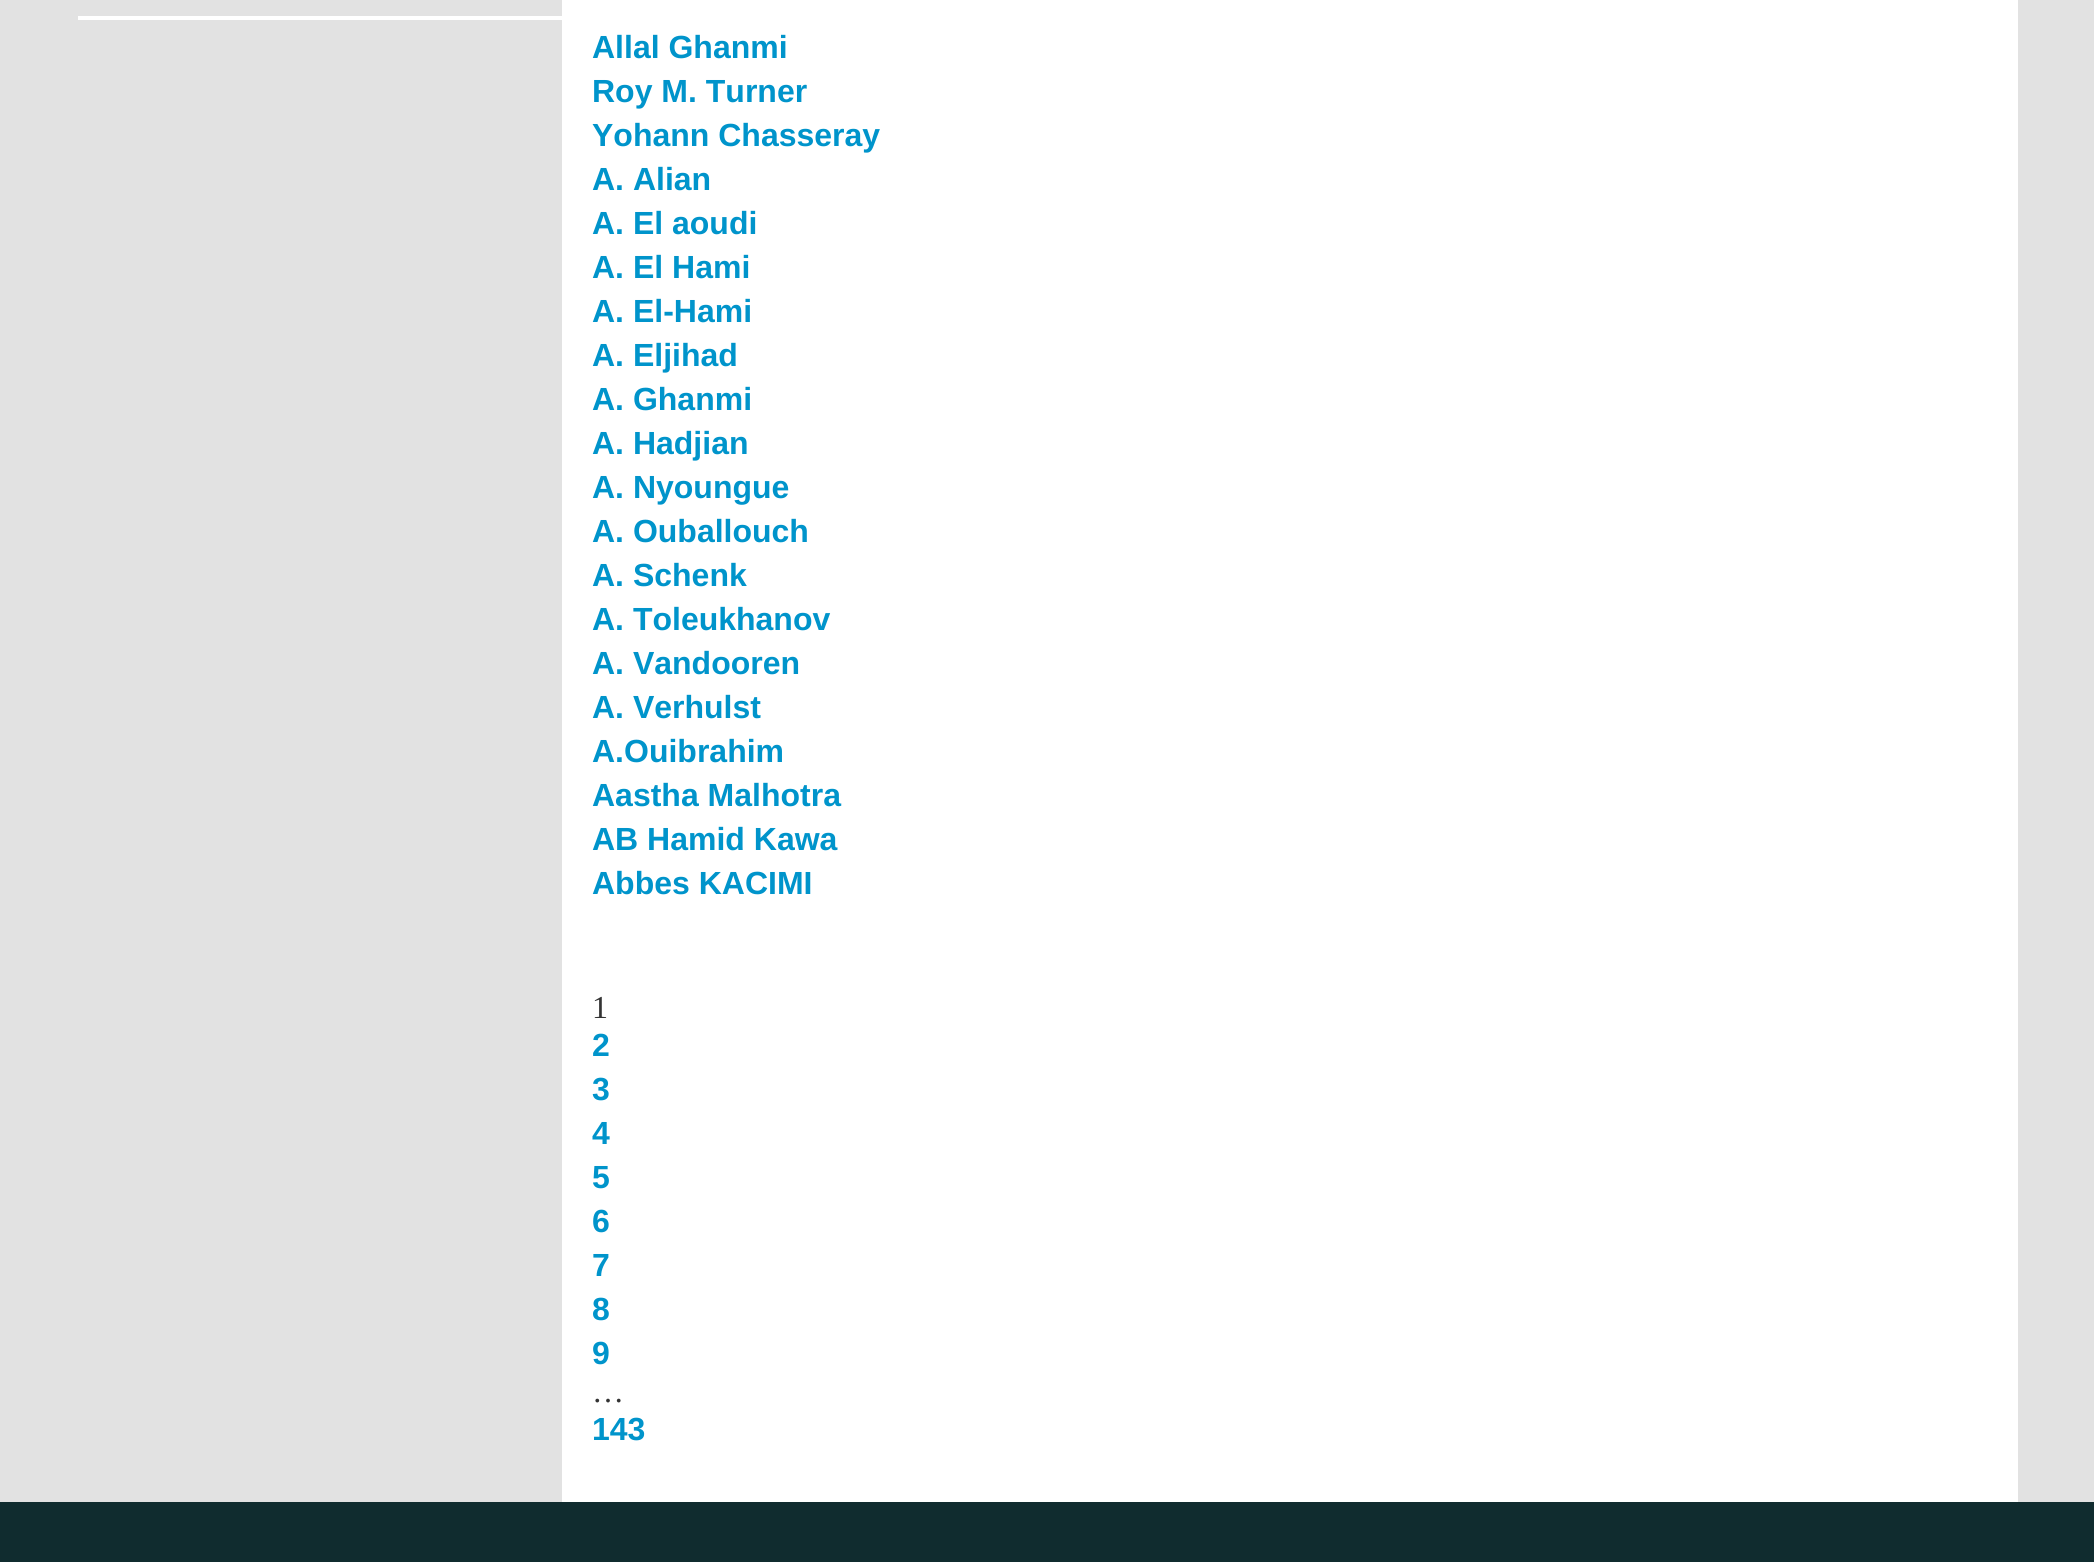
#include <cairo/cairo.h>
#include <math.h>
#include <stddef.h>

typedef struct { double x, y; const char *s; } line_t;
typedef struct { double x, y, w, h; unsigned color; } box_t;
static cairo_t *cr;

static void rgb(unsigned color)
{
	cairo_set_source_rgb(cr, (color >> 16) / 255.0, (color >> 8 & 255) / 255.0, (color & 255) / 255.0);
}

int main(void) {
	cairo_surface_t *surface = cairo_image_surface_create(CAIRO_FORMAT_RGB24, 2094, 1562);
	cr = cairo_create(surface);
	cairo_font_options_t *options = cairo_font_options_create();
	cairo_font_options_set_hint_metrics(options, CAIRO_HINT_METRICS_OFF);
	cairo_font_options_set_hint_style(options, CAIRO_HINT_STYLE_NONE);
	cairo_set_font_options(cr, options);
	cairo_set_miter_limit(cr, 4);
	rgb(0xe2e2e2);
	cairo_paint(cr);
	{
		static const box_t items[] = {
			{78, 16, 484, 4, 0xffffff},
			{562, 0, 1456, 1502, 0xffffff},
			{0, 1502, 2094, 60, 0x102c2f},
		};
		for (size_t i = 0; i < sizeof items / sizeof *items; i++) {
			rgb(items[i].color);
			cairo_rectangle(cr, items[i].x, items[i].y, items[i].w, items[i].h);
			cairo_fill(cr);
		}
	}
	cairo_select_font_face(cr, "Liberation Sans", CAIRO_FONT_SLANT_NORMAL, CAIRO_FONT_WEIGHT_BOLD);
	cairo_set_font_size(cr, 32);
	rgb(0x0094cb);
	{
		static const line_t items[] = {
			{592, 58, "Allal Ghanmi"},
			{592, 102, "Roy M. Turner"},
			{592, 146, "Yohann Chasseray"},
			{592, 190, "A. Alian"},
			{592, 234, "A. El aoudi"},
			{592, 278, "A. El Hami"},
			{592, 322, "A. El-Hami"},
			{592, 366, "A. Eljihad"},
			{592, 410, "A. Ghanmi"},
			{592, 454, "A. Hadjian"},
			{592, 498, "A. Nyoungue"},
			{592, 542, "A. Ouballouch"},
			{592, 586, "A. Schenk"},
			{592, 630, "A. Toleukhanov"},
			{592, 674, "A. Vandooren"},
			{592, 718, "A. Verhulst"},
			{592, 762, "A.Ouibrahim"},
			{592, 806, "Aastha Malhotra"},
			{592, 850, "AB Hamid Kawa"},
			{592, 894, "Abbes KACIMI"},
		};
		for (size_t i = 0; i < sizeof items / sizeof *items; i++) {
			cairo_move_to(cr, items[i].x, items[i].y);
			cairo_show_text(cr, items[i].s);
		}
	}
	cairo_select_font_face(cr, "Liberation Serif", CAIRO_FONT_SLANT_NORMAL, CAIRO_FONT_WEIGHT_NORMAL);
	rgb(0x333333);
	cairo_move_to(cr, 592, 1018);
	cairo_show_text(cr, "1");
	cairo_select_font_face(cr, "Liberation Sans", CAIRO_FONT_SLANT_NORMAL, CAIRO_FONT_WEIGHT_BOLD);
	rgb(0x0094cb);
	{
		static const line_t items[] = {
			{592, 1056, "2"},
			{592, 1100, "3"},
			{592, 1144, "4"},
			{592, 1188, "5"},
			{592, 1232, "6"},
			{592, 1276, "7"},
			{592, 1320, "8"},
			{592, 1364, "9"},
		};
		for (size_t i = 0; i < sizeof items / sizeof *items; i++) {
			cairo_move_to(cr, items[i].x, items[i].y);
			cairo_show_text(cr, items[i].s);
		}
	}
	cairo_select_font_face(cr, "Liberation Serif", CAIRO_FONT_SLANT_NORMAL, CAIRO_FONT_WEIGHT_NORMAL);
	rgb(0x333333);
	cairo_move_to(cr, 592, 1402);
	cairo_show_text(cr, "…");
	cairo_select_font_face(cr, "Liberation Sans", CAIRO_FONT_SLANT_NORMAL, CAIRO_FONT_WEIGHT_BOLD);
	rgb(0x0094cb);
	cairo_move_to(cr, 592, 1440);
	cairo_show_text(cr, "143");
	cairo_surface_write_to_png(surface, "page.png");
	cairo_font_options_destroy(options);
	cairo_destroy(cr);
	cairo_surface_destroy(surface);
	return 0;
}
